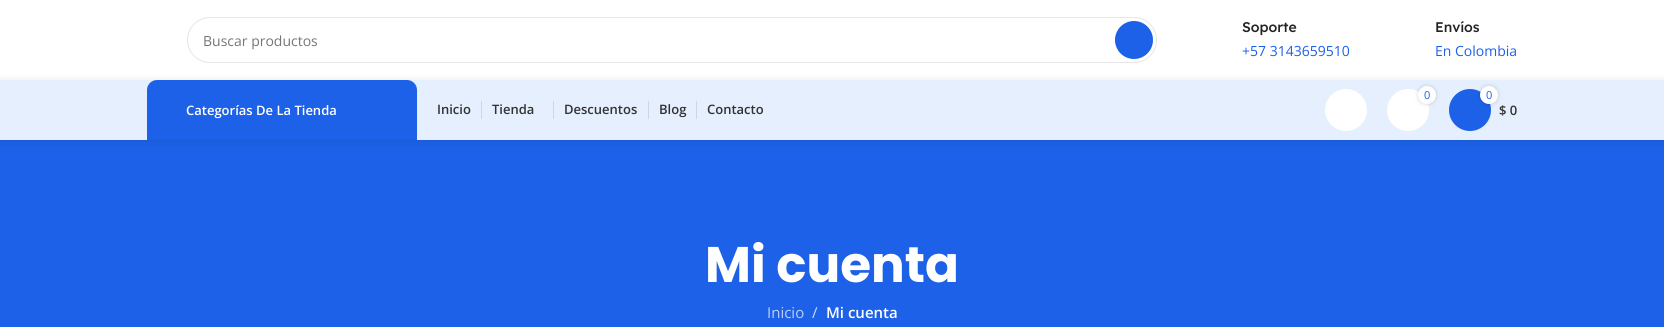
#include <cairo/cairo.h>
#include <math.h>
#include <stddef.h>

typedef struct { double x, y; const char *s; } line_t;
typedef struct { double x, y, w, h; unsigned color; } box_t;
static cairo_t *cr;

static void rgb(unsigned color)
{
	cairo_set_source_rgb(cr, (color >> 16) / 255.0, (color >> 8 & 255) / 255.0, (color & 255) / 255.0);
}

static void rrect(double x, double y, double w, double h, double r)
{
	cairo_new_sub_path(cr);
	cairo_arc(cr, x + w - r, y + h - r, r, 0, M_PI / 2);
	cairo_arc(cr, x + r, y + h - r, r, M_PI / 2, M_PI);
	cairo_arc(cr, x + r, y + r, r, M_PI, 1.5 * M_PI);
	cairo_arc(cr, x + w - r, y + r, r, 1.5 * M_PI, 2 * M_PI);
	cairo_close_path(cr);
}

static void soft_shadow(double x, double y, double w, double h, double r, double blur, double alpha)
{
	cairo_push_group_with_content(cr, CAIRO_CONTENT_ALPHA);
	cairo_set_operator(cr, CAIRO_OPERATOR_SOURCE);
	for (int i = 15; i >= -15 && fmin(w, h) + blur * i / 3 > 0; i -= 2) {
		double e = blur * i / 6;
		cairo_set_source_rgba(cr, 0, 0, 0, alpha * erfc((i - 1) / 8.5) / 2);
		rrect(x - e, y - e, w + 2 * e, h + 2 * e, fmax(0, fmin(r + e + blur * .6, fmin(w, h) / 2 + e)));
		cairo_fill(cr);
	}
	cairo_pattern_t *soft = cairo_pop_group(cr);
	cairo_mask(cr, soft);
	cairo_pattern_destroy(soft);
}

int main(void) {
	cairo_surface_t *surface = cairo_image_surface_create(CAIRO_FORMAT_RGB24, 1664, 327);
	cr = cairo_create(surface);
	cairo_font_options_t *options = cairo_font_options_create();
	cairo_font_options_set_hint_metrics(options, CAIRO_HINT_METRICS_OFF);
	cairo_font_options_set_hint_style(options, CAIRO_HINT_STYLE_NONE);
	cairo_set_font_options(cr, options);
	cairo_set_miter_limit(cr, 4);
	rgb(0xffffff);
	cairo_paint(cr);
	rrect(187.5, 17.5, 969, 45, 22.5);
	rgb(0xe6e6e6);
	cairo_set_line_width(cr, 1);
	cairo_stroke(cr);
	rgb(0x1c61e7);
	cairo_arc(cr, 1134, 40, 19, 0, 2 * M_PI);
	cairo_fill(cr);
	cairo_rectangle(cr, 0, 140, 1664, 187);
	cairo_fill(cr);
	rgb(0x000000);
	soft_shadow(0, 81, 1664, 60, 0, 4, 0.1);
	rgb(0xe6effd);
	cairo_rectangle(cr, 0, 80, 1664, 60);
	cairo_fill(cr);
	rgb(0x1c61e7);
	cairo_new_path(cr);
	cairo_move_to(cr, 157, 80);
	cairo_line_to(cr, 407, 80);
	cairo_curve_to(cr, 412.5, 80, 417, 84.5, 417, 90);
	cairo_line_to(cr, 417, 140);
	cairo_line_to(cr, 147, 140);
	cairo_line_to(cr, 147, 90);
	cairo_curve_to(cr, 147, 84.5, 151.5, 80, 157, 80);
	cairo_close_path(cr);
	cairo_fill(cr);
	{
		static const box_t items[] = {
			{481, 101, 1, 18, 0xced6e2},
			{553, 101, 1, 18, 0xced6e2},
			{648, 101, 1, 18, 0xced6e2},
			{696, 101, 1, 18, 0xced6e2},
		};
		for (size_t i = 0; i < sizeof items / sizeof *items; i++) {
			rgb(items[i].color);
			cairo_rectangle(cr, items[i].x, items[i].y, items[i].w, items[i].h);
			cairo_fill(cr);
		}
	}
	rgb(0xffffff);
	cairo_arc(cr, 1346, 110, 21, 0, 2 * M_PI);
	cairo_fill(cr);
	cairo_arc(cr, 1408, 110, 21, 0, 2 * M_PI);
	cairo_fill(cr);
	rgb(0x000000);
	soft_shadow(1418, 86, 18, 18, 9, 2, 0.17);
	rgb(0xffffff);
	cairo_arc(cr, 1427, 95, 9, 0, 2 * M_PI);
	cairo_fill(cr);
	rgb(0x1c61e7);
	cairo_arc(cr, 1470, 110, 21, 0, 2 * M_PI);
	cairo_fill(cr);
	rgb(0x000000);
	soft_shadow(1480, 86, 18, 18, 9, 2, 0.17);
	rgb(0xffffff);
	cairo_arc(cr, 1489, 95, 9, 0, 2 * M_PI);
	cairo_fill(cr);
	cairo_select_font_face(cr, "Open Sans", CAIRO_FONT_SLANT_NORMAL, CAIRO_FONT_WEIGHT_NORMAL);
	cairo_set_font_size(cr, 14);
	rgb(0x767676);
	cairo_move_to(cr, 203, 46);
	cairo_show_text(cr, "Buscar productos");
	cairo_select_font_face(cr, "Lexend Deca Medium", CAIRO_FONT_SLANT_NORMAL, CAIRO_FONT_WEIGHT_NORMAL);
	rgb(0x242424);
	cairo_move_to(cr, 1242, 32);
	cairo_show_text(cr, "Soporte");
	cairo_select_font_face(cr, "Open Sans", CAIRO_FONT_SLANT_NORMAL, CAIRO_FONT_WEIGHT_NORMAL);
	rgb(0x1c61e7);
	cairo_move_to(cr, 1242, 56);
	cairo_show_text(cr, "+57 3143659510");
	cairo_select_font_face(cr, "Lexend Deca Medium", CAIRO_FONT_SLANT_NORMAL, CAIRO_FONT_WEIGHT_NORMAL);
	rgb(0x242424);
	cairo_move_to(cr, 1435, 32);
	cairo_show_text(cr, "Envíos");
	cairo_select_font_face(cr, "Open Sans", CAIRO_FONT_SLANT_NORMAL, CAIRO_FONT_WEIGHT_NORMAL);
	rgb(0x1c61e7);
	cairo_move_to(cr, 1435, 56);
	cairo_show_text(cr, "En Colombia");
	cairo_select_font_face(cr, "Open Sans SemiBold", CAIRO_FONT_SLANT_NORMAL, CAIRO_FONT_WEIGHT_NORMAL);
	cairo_set_font_size(cr, 13);
	rgb(0xffffff);
	cairo_move_to(cr, 186, 115);
	cairo_show_text(cr, "Categorías De La Tienda");
	rgb(0x333333);
	{
		static const line_t items[] = {
			{437, 114, "Inicio"},
			{492, 114, "Tienda"},
			{564, 114, "Descuentos"},
			{659, 114, "Blog"},
			{707, 114, "Contacto"},
		};
		for (size_t i = 0; i < sizeof items / sizeof *items; i++) {
			cairo_move_to(cr, items[i].x, items[i].y);
			cairo_show_text(cr, items[i].s);
		}
	}
	cairo_select_font_face(cr, "Open Sans", CAIRO_FONT_SLANT_NORMAL, CAIRO_FONT_WEIGHT_NORMAL);
	cairo_set_font_size(cr, 11);
	rgb(0x1c61e7);
	cairo_move_to(cr, 1424, 99);
	cairo_show_text(cr, "0");
	cairo_move_to(cr, 1486, 99);
	cairo_show_text(cr, "0");
	cairo_select_font_face(cr, "Open Sans SemiBold", CAIRO_FONT_SLANT_NORMAL, CAIRO_FONT_WEIGHT_NORMAL);
	cairo_set_font_size(cr, 13);
	rgb(0x333333);
	cairo_move_to(cr, 1499, 115);
	cairo_show_text(cr, "$ 0");
	cairo_select_font_face(cr, "Poppins", CAIRO_FONT_SLANT_NORMAL, CAIRO_FONT_WEIGHT_BOLD);
	cairo_set_font_size(cr, 50);
	rgb(0xffffff);
	cairo_move_to(cr, 705, 282);
	cairo_show_text(cr, "Mi cuenta");
	cairo_select_font_face(cr, "Open Sans", CAIRO_FONT_SLANT_NORMAL, CAIRO_FONT_WEIGHT_NORMAL);
	cairo_set_font_size(cr, 15);
	rgb(0xbbd0f8);
	cairo_move_to(cr, 767, 318);
	cairo_show_text(cr, "Inicio");
	rgb(0xd2dffa);
	cairo_move_to(cr, 812, 318);
	cairo_show_text(cr, "/");
	cairo_select_font_face(cr, "Open Sans SemiBold", CAIRO_FONT_SLANT_NORMAL, CAIRO_FONT_WEIGHT_NORMAL);
	rgb(0xffffff);
	cairo_move_to(cr, 826, 318);
	cairo_show_text(cr, "Mi cuenta");
	cairo_surface_write_to_png(surface, "page.png");
	cairo_font_options_destroy(options);
	cairo_destroy(cr);
	cairo_surface_destroy(surface);
	return 0;
}
